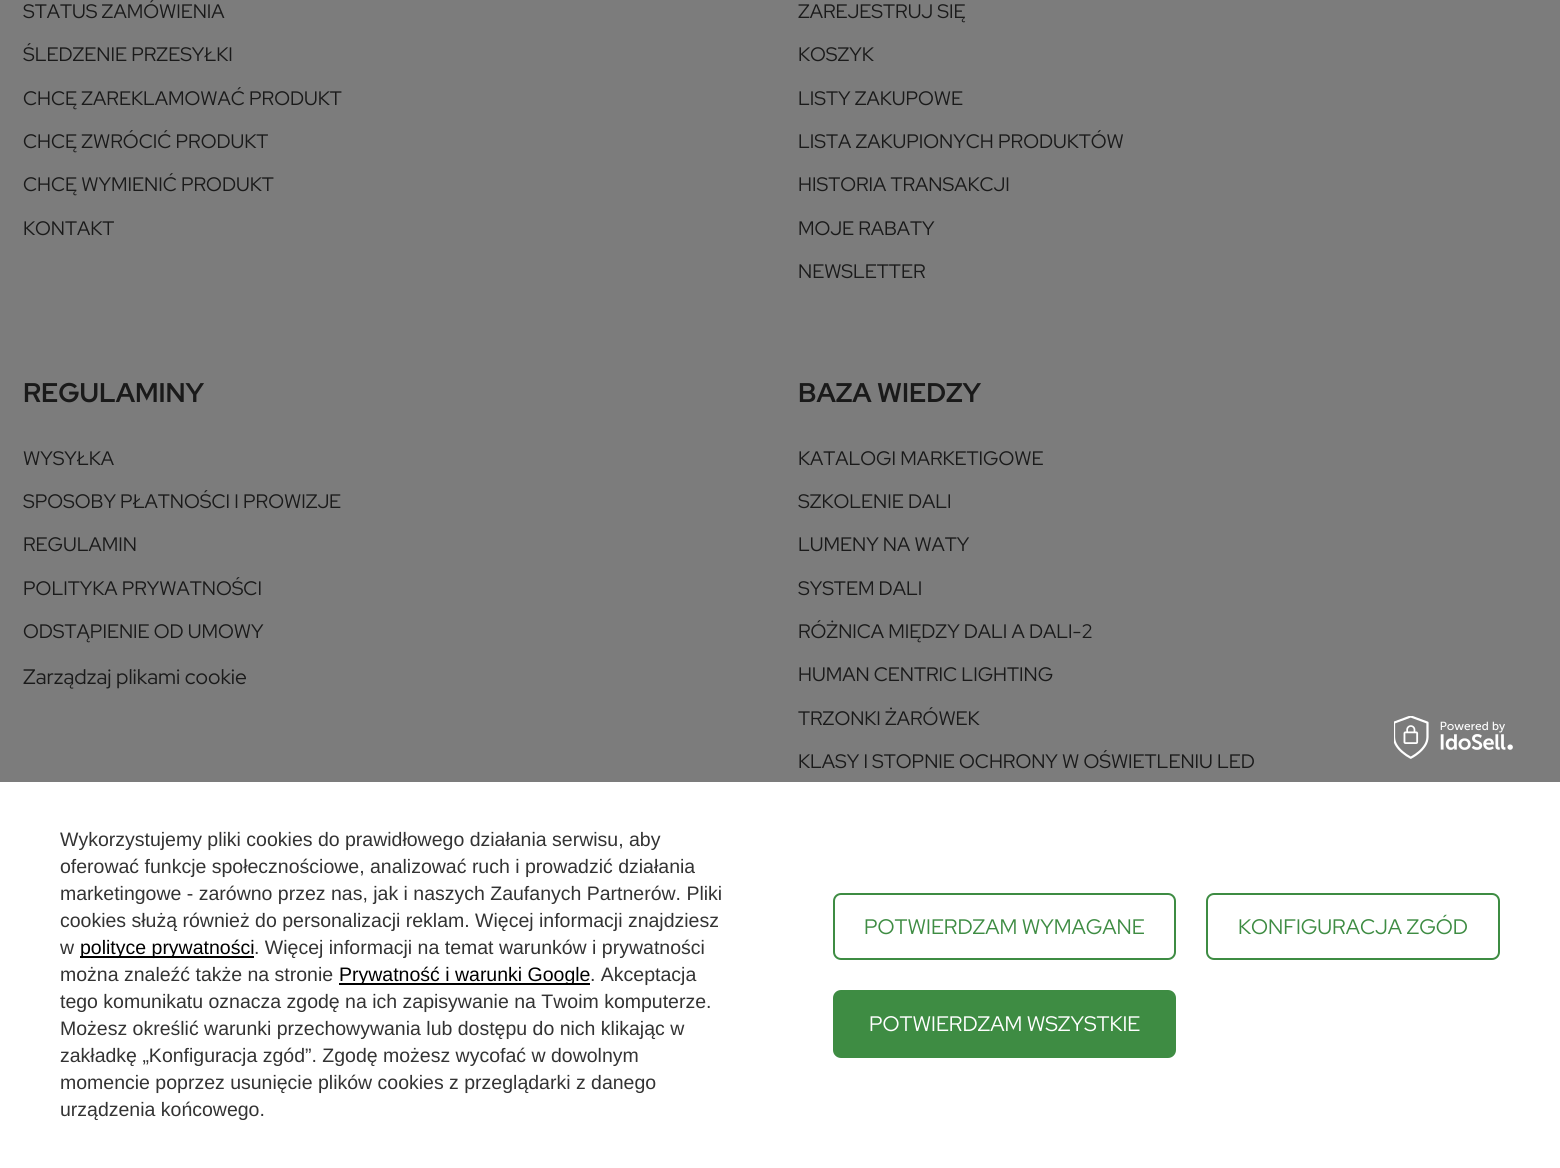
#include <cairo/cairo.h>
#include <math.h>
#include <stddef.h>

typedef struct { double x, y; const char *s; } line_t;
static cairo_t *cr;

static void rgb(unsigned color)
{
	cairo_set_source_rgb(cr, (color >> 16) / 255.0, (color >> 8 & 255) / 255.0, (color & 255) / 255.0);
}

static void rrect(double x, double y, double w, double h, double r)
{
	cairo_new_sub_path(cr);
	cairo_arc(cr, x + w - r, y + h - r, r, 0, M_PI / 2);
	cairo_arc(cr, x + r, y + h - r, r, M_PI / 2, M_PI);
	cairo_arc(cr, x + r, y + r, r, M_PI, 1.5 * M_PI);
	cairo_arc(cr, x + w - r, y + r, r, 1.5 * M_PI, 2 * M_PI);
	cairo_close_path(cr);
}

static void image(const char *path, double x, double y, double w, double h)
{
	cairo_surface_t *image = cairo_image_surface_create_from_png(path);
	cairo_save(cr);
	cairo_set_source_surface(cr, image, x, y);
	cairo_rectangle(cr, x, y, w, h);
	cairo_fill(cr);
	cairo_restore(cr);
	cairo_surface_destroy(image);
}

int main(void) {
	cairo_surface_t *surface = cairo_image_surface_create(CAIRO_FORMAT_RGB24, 1560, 1168);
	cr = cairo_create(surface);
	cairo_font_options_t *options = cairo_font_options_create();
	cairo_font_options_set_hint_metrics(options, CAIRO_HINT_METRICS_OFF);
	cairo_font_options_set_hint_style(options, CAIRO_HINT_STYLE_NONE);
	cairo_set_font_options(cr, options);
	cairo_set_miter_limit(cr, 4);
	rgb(0x7c7c7c);
	cairo_paint(cr);
	rgb(0xffffff);
	cairo_rectangle(cr, 0, 782, 1560, 386);
	cairo_fill(cr);
	image("img/1.png", 1394, 716, 119, 43);
	rgb(0x000000);
	cairo_rectangle(cr, 80, 956, 174, 2);
	cairo_fill(cr);
	cairo_rectangle(cr, 339, 983, 251, 2);
	cairo_fill(cr);
	rrect(834, 894, 341, 65, 7);
	rgb(0x3e8c43);
	cairo_stroke(cr);
	rrect(1207, 894, 292, 65, 7);
	cairo_stroke(cr);
	rrect(834, 991, 341, 66, 7);
	cairo_fill_preserve(cr);
	cairo_stroke(cr);
	cairo_select_font_face(cr, "Red Hat Display", CAIRO_FONT_SLANT_NORMAL, CAIRO_FONT_WEIGHT_NORMAL);
	cairo_set_font_size(cr, 19.5);
	rgb(0x1a1a1a);
	{
		static const line_t items[] = {
			{23, 18, "STATUS ZAMÓWIENIA"},
			{23, 61, "ŚLEDZENIE PRZESYŁKI"},
			{23, 105, "CHCĘ ZAREKLAMOWAĆ PRODUKT"},
			{23, 148, "CHCĘ ZWRÓCIĆ PRODUKT"},
			{23, 191, "CHCĘ WYMIENIĆ PRODUKT"},
			{23, 235, "KONTAKT"},
			{798, 18, "ZAREJESTRUJ SIĘ"},
			{798, 61, "KOSZYK"},
			{798, 105, "LISTY ZAKUPOWE"},
			{798, 148, "LISTA ZAKUPIONYCH PRODUKTÓW"},
			{798, 191, "HISTORIA TRANSAKCJI"},
			{798, 235, "MOJE RABATY"},
			{798, 278, "NEWSLETTER"},
		};
		for (size_t i = 0; i < sizeof items / sizeof *items; i++) {
			cairo_move_to(cr, items[i].x, items[i].y);
			cairo_show_text(cr, items[i].s);
		}
	}
	cairo_select_font_face(cr, "Red Hat Display", CAIRO_FONT_SLANT_NORMAL, CAIRO_FONT_WEIGHT_BOLD);
	cairo_set_font_size(cr, 27);
	cairo_move_to(cr, 23, 402);
	cairo_show_text(cr, "REGULAMINY");
	cairo_select_font_face(cr, "Red Hat Display", CAIRO_FONT_SLANT_NORMAL, CAIRO_FONT_WEIGHT_NORMAL);
	cairo_set_font_size(cr, 19.5);
	{
		static const line_t items[] = {
			{23, 465, "WYSYŁKA"},
			{23, 508, "SPOSOBY PŁATNOŚCI I PROWIZJE"},
			{23, 551, "REGULAMIN"},
			{23, 595, "POLITYKA PRYWATNOŚCI"},
			{23, 638, "ODSTĄPIENIE OD UMOWY"},
		};
		for (size_t i = 0; i < sizeof items / sizeof *items; i++) {
			cairo_move_to(cr, items[i].x, items[i].y);
			cairo_show_text(cr, items[i].s);
		}
	}
	cairo_set_font_size(cr, 21);
	cairo_move_to(cr, 23, 684);
	cairo_show_text(cr, "Zarządzaj plikami cookie");
	cairo_select_font_face(cr, "Red Hat Display", CAIRO_FONT_SLANT_NORMAL, CAIRO_FONT_WEIGHT_BOLD);
	cairo_set_font_size(cr, 27);
	cairo_move_to(cr, 798, 402);
	cairo_show_text(cr, "BAZA WIEDZY");
	cairo_select_font_face(cr, "Red Hat Display", CAIRO_FONT_SLANT_NORMAL, CAIRO_FONT_WEIGHT_NORMAL);
	cairo_set_font_size(cr, 19.5);
	{
		static const line_t items[] = {
			{798, 465, "KATALOGI MARKETIGOWE"},
			{798, 508, "SZKOLENIE DALI"},
			{798, 551, "LUMENY NA WATY"},
			{798, 595, "SYSTEM DALI"},
			{798, 638, "RÓŻNICA MIĘDZY DALI A DALI-2"},
			{798, 681, "HUMAN CENTRIC LIGHTING"},
			{798, 725, "TRZONKI ŻARÓWEK"},
			{798, 768, "KLASY I STOPNIE OCHRONY W OŚWIETLENIU LED"},
		};
		for (size_t i = 0; i < sizeof items / sizeof *items; i++) {
			cairo_move_to(cr, items[i].x, items[i].y);
			cairo_show_text(cr, items[i].s);
		}
	}
	cairo_select_font_face(cr, "Liberation Sans", CAIRO_FONT_SLANT_NORMAL, CAIRO_FONT_WEIGHT_NORMAL);
	rgb(0x333333);
	{
		static const line_t items[] = {
			{60, 846, "Wykorzystujemy pliki cookies do prawidłowego działania serwisu, aby"},
			{60, 873, "oferować funkcje społecznościowe, analizować ruch i prowadzić działania"},
			{60, 900, "marketingowe - zarówno przez nas, jak i naszych Zaufanych Partnerów. Pliki"},
			{60, 927, "cookies służą również do personalizacji reklam. Więcej informacji znajdziesz"},
			{60, 954, "w"},
		};
		for (size_t i = 0; i < sizeof items / sizeof *items; i++) {
			cairo_move_to(cr, items[i].x, items[i].y);
			cairo_show_text(cr, items[i].s);
		}
	}
	rgb(0x000000);
	cairo_move_to(cr, 80, 954);
	cairo_show_text(cr, "polityce prywatności");
	rgb(0x333333);
	cairo_move_to(cr, 254, 954);
	cairo_show_text(cr, ". Więcej informacji na temat warunków i prywatności");
	cairo_move_to(cr, 60, 981);
	cairo_show_text(cr, "można znaleźć także na stronie");
	rgb(0x000000);
	cairo_move_to(cr, 339, 981);
	cairo_show_text(cr, "Prywatność i warunki Google");
	rgb(0x333333);
	{
		static const line_t items[] = {
			{590, 981, ". Akceptacja"},
			{60, 1008, "tego komunikatu oznacza zgodę na ich zapisywanie na Twoim komputerze."},
			{60, 1035, "Możesz określić warunki przechowywania lub dostępu do nich klikając w"},
			{60, 1062, "zakładkę „Konfiguracja zgód”. Zgodę możesz wycofać w dowolnym"},
			{60, 1089, "momencie poprzez usunięcie plików cookies z przeglądarki z danego"},
			{60, 1116, "urządzenia końcowego."},
		};
		for (size_t i = 0; i < sizeof items / sizeof *items; i++) {
			cairo_move_to(cr, items[i].x, items[i].y);
			cairo_show_text(cr, items[i].s);
		}
	}
	cairo_select_font_face(cr, "Red Hat Display", CAIRO_FONT_SLANT_NORMAL, CAIRO_FONT_WEIGHT_NORMAL);
	cairo_set_font_size(cr, 21);
	rgb(0x3e8c43);
	cairo_move_to(cr, 864, 934);
	cairo_show_text(cr, "POTWIERDZAM WYMAGANE");
	cairo_move_to(cr, 1238, 934);
	cairo_show_text(cr, "KONFIGURACJA ZGÓD");
	rgb(0xffffff);
	cairo_move_to(cr, 869, 1031);
	cairo_show_text(cr, "POTWIERDZAM WSZYSTKIE");
	cairo_surface_write_to_png(surface, "page.png");
	cairo_font_options_destroy(options);
	cairo_destroy(cr);
	cairo_surface_destroy(surface);
	return 0;
}
